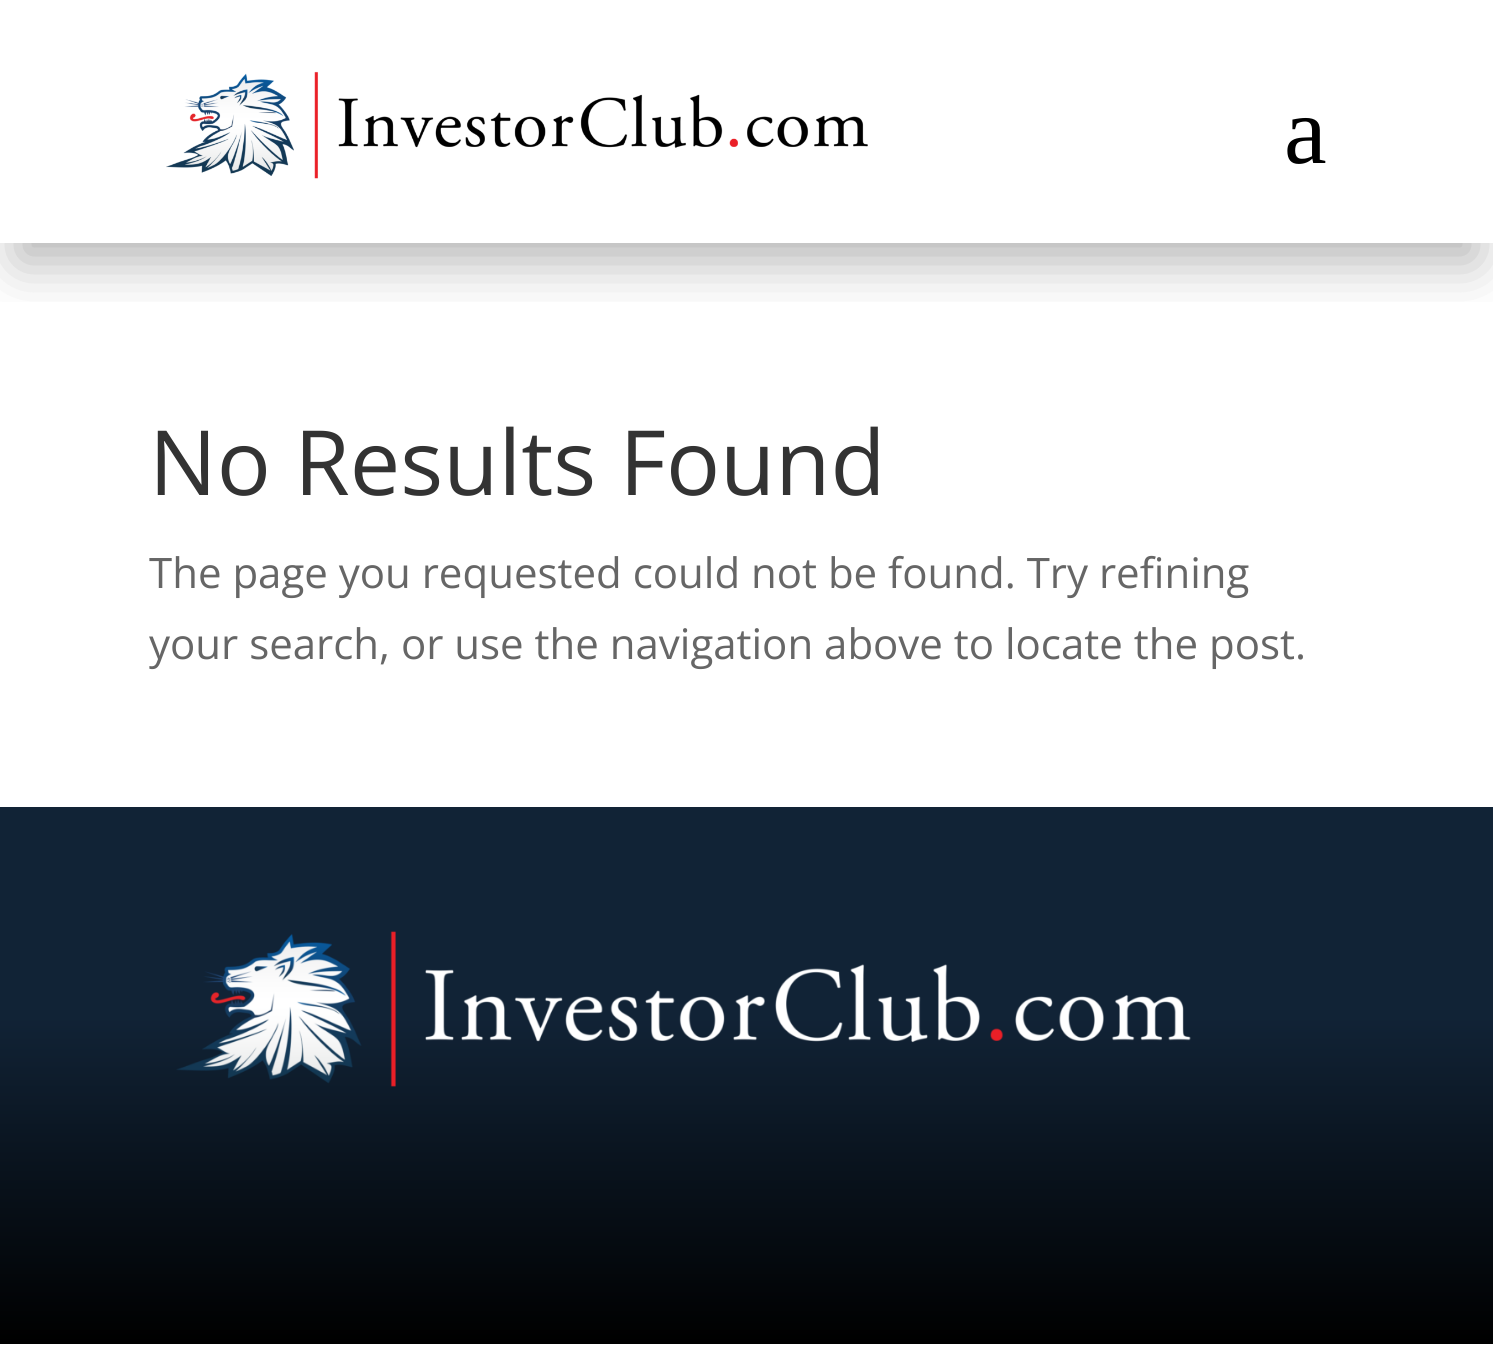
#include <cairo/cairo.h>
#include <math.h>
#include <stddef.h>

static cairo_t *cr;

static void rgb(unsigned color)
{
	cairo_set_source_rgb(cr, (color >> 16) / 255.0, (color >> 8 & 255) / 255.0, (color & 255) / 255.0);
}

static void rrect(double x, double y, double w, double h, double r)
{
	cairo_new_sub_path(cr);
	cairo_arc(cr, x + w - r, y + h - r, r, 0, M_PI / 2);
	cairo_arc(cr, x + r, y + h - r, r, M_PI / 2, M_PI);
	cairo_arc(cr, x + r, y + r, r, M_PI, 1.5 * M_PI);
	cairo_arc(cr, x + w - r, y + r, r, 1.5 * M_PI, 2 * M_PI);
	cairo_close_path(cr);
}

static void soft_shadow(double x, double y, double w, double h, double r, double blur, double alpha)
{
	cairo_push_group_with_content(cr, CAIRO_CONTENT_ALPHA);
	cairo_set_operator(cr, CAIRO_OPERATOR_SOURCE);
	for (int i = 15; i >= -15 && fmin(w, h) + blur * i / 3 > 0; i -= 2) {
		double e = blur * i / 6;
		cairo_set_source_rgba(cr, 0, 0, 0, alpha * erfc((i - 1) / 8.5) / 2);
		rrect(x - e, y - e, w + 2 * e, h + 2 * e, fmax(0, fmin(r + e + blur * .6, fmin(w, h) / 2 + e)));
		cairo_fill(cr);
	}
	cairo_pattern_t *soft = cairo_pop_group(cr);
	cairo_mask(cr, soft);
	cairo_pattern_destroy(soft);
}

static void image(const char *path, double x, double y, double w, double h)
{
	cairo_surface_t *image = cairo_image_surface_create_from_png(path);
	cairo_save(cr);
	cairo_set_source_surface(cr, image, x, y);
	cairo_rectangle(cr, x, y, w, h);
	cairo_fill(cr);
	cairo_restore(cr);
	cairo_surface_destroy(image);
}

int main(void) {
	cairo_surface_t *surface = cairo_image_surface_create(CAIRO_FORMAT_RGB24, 1493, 1348);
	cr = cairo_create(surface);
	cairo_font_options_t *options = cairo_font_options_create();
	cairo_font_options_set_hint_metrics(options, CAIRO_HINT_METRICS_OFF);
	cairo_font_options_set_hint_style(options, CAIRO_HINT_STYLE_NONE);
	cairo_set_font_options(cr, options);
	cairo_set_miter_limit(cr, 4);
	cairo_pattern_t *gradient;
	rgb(0xffffff);
	cairo_paint(cr);
	cairo_save(cr);
	cairo_rectangle(cr, 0, 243, 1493, 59);
	cairo_clip(cr);
	rgb(0x000000);
	soft_shadow(18, 54, 1458, 207, 0, 27, 0.3);
	cairo_restore(cr);
	image("img/1.png", 166, 71, 702, 108);
	gradient = cairo_pattern_create_linear(747, 807, 747, 1344);
	cairo_pattern_add_color_stop_rgba(gradient, 0.39, 0.067, 0.137, 0.212, 1);
	cairo_pattern_add_color_stop_rgba(gradient, 1, 0, 0, 0, 1);
	cairo_set_source(cr, gradient);
	cairo_pattern_destroy(gradient);
	cairo_rectangle(cr, 0, 807, 1493, 537);
	cairo_fill(cr);
	image("img/2.png", 176, 931, 1015, 156);
	cairo_select_font_face(cr, "Liberation Serif", CAIRO_FONT_SLANT_NORMAL, CAIRO_FONT_WEIGHT_NORMAL);
	cairo_set_font_size(cr, 96);
	rgb(0x000000);
	cairo_move_to(cr, 1284, 163);
	cairo_show_text(cr, "a");
	cairo_select_font_face(cr, "Open Sans", CAIRO_FONT_SLANT_NORMAL, CAIRO_FONT_WEIGHT_NORMAL);
	cairo_set_font_size(cr, 90);
	rgb(0x333333);
	cairo_move_to(cr, 149, 495);
	cairo_show_text(cr, "No Results Found");
	cairo_set_font_size(cr, 42);
	rgb(0x666666);
	cairo_move_to(cr, 149, 588);
	cairo_show_text(cr, "The page you requested could not be found. Try refining");
	cairo_move_to(cr, 149, 659);
	cairo_show_text(cr, "your search, or use the navigation above to locate the post.");
	cairo_surface_write_to_png(surface, "page.png");
	cairo_font_options_destroy(options);
	cairo_destroy(cr);
	cairo_surface_destroy(surface);
	return 0;
}
